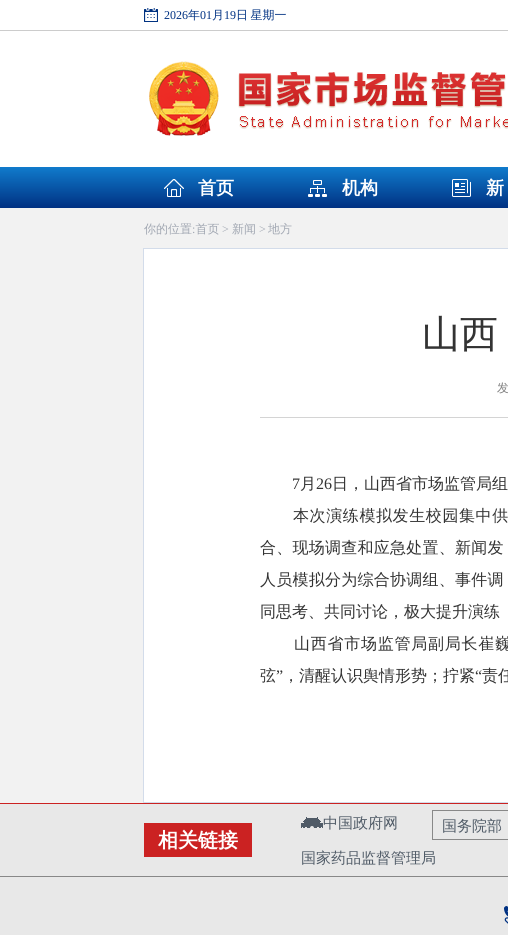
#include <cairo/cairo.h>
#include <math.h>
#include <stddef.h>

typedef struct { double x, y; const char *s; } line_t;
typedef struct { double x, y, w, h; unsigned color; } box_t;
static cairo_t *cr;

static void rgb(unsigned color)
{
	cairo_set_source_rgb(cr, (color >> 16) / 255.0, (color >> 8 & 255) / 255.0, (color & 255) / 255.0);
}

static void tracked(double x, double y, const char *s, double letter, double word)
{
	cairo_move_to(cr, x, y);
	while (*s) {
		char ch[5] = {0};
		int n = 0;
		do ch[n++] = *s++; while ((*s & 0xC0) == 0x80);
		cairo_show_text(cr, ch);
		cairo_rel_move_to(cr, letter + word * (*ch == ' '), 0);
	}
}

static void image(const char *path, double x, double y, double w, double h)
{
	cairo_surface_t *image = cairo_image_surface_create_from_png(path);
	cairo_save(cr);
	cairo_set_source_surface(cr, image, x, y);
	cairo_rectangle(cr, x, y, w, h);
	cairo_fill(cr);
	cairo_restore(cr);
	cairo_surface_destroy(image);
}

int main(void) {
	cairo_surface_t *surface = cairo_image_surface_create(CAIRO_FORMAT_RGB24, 508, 935);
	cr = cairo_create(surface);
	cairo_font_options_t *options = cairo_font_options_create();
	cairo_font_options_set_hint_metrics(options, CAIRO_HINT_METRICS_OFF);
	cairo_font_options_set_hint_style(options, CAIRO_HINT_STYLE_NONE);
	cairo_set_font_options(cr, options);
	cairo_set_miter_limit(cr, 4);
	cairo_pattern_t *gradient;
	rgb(0xffffff);
	cairo_paint(cr);
	rgb(0xcccccc);
	cairo_rectangle(cr, 0, 30, 508, 1);
	cairo_fill(cr);
	image("img/1.png", 144, 8, 14, 14);
	image("img/2.png", 149, 61, 359, 75);
	gradient = cairo_pattern_create_linear(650, 167, 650, 208);
	cairo_pattern_add_color_stop_rgba(gradient, 0, 0.063, 0.482, 0.8, 1);
	cairo_pattern_add_color_stop_rgba(gradient, 1, 0, 0.192, 0.51, 1);
	cairo_set_source(cr, gradient);
	cairo_pattern_destroy(gradient);
	cairo_rectangle(cr, 0, 167, 508, 41);
	cairo_fill(cr);
	image("img/3.png", 164, 179, 20, 18);
	image("img/4.png", 308, 180, 19, 17);
	image("img/5.png", 452, 179, 19, 18);
	rgb(0xf2f2f2);
	cairo_rectangle(cr, 0, 208, 508, 595);
	cairo_fill(cr);
	rgb(0xffffff);
	cairo_rectangle(cr, 143.5, 248.5, 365, 554);
	cairo_fill_preserve(cr);
	rgb(0xd3dcea);
	cairo_set_line_width(cr, 1);
	cairo_stroke(cr);
	{
		static const box_t items[] = {
			{260, 417, 248, 1, 0xd4d4d4},
			{0, 804, 508, 131, 0xe8e8e8},
			{0, 803, 508, 1, 0xcb2222},
		};
		for (size_t i = 0; i < sizeof items / sizeof *items; i++) {
			rgb(items[i].color);
			cairo_rectangle(cr, items[i].x, items[i].y, items[i].w, items[i].h);
			cairo_fill(cr);
		}
	}
	image("img/6.png", 301, 817, 22, 11);
	cairo_rectangle(cr, 432.5, 810.5, 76, 29);
	rgb(0x888888);
	cairo_stroke(cr);
	rgb(0xcb2222);
	cairo_rectangle(cr, 144, 823, 108, 34);
	cairo_fill(cr);
	rgb(0x888888);
	cairo_rectangle(cr, 0, 876, 508, 1);
	cairo_fill(cr);
	image("img/7.png", 504, 906, 4, 18);
	cairo_select_font_face(cr, "Liberation Serif", CAIRO_FONT_SLANT_NORMAL, CAIRO_FONT_WEIGHT_NORMAL);
	cairo_set_font_size(cr, 12);
	rgb(0x003182);
	cairo_move_to(cr, 164, 19);
	cairo_show_text(cr, "2026");
	cairo_select_font_face(cr, "WenQuanYi Zen Hei Medium", CAIRO_FONT_SLANT_NORMAL, CAIRO_FONT_WEIGHT_NORMAL);
	cairo_move_to(cr, 188, 19);
	cairo_show_text(cr, "年");
	cairo_select_font_face(cr, "Liberation Serif", CAIRO_FONT_SLANT_NORMAL, CAIRO_FONT_WEIGHT_NORMAL);
	cairo_move_to(cr, 200, 19);
	cairo_show_text(cr, "01");
	cairo_select_font_face(cr, "WenQuanYi Zen Hei Medium", CAIRO_FONT_SLANT_NORMAL, CAIRO_FONT_WEIGHT_NORMAL);
	cairo_move_to(cr, 212, 19);
	cairo_show_text(cr, "月");
	cairo_select_font_face(cr, "Liberation Serif", CAIRO_FONT_SLANT_NORMAL, CAIRO_FONT_WEIGHT_NORMAL);
	cairo_move_to(cr, 224, 19);
	cairo_show_text(cr, "19");
	cairo_select_font_face(cr, "WenQuanYi Zen Hei Medium", CAIRO_FONT_SLANT_NORMAL, CAIRO_FONT_WEIGHT_NORMAL);
	tracked(236, 19, "日 星期一", 0, -1);
	cairo_select_font_face(cr, "WenQuanYi Zen Hei", CAIRO_FONT_SLANT_NORMAL, CAIRO_FONT_WEIGHT_BOLD);
	cairo_set_font_size(cr, 18);
	rgb(0xffffff);
	{
		static const line_t items[] = {
			{198, 194, "首页"},
			{342, 194, "机构"},
			{486, 194, "新"},
		};
		for (size_t i = 0; i < sizeof items / sizeof *items; i++) {
			cairo_move_to(cr, items[i].x, items[i].y);
			cairo_show_text(cr, items[i].s);
		}
	}
	cairo_select_font_face(cr, "WenQuanYi Zen Hei Medium", CAIRO_FONT_SLANT_NORMAL, CAIRO_FONT_WEIGHT_NORMAL);
	cairo_set_font_size(cr, 12);
	rgb(0xa1a7b2);
	cairo_move_to(cr, 144, 233);
	cairo_show_text(cr, "你的位置 首页");
	cairo_select_font_face(cr, "Liberation Serif", CAIRO_FONT_SLANT_NORMAL, CAIRO_FONT_WEIGHT_NORMAL);
	cairo_move_to(cr, 222, 233);
	cairo_show_text(cr, ">");
	cairo_select_font_face(cr, "WenQuanYi Zen Hei Medium", CAIRO_FONT_SLANT_NORMAL, CAIRO_FONT_WEIGHT_NORMAL);
	cairo_move_to(cr, 232, 233);
	cairo_show_text(cr, "新闻");
	cairo_select_font_face(cr, "Liberation Serif", CAIRO_FONT_SLANT_NORMAL, CAIRO_FONT_WEIGHT_NORMAL);
	cairo_move_to(cr, 259, 233);
	cairo_show_text(cr, ">");
	cairo_select_font_face(cr, "WenQuanYi Zen Hei Medium", CAIRO_FONT_SLANT_NORMAL, CAIRO_FONT_WEIGHT_NORMAL);
	cairo_move_to(cr, 268, 233);
	cairo_show_text(cr, "地方");
	cairo_select_font_face(cr, "Liberation Serif", CAIRO_FONT_SLANT_NORMAL, CAIRO_FONT_WEIGHT_NORMAL);
	cairo_move_to(cr, 192, 233);
	cairo_show_text(cr, ":");
	cairo_select_font_face(cr, "WenQuanYi Zen Hei Medium", CAIRO_FONT_SLANT_NORMAL, CAIRO_FONT_WEIGHT_NORMAL);
	cairo_set_font_size(cr, 38);
	rgb(0x333333);
	cairo_move_to(cr, 422, 347);
	cairo_show_text(cr, "山西");
	cairo_set_font_size(cr, 12);
	rgb(0x808080);
	cairo_move_to(cr, 497, 392);
	cairo_show_text(cr, "发");
	cairo_select_font_face(cr, "Liberation Serif", CAIRO_FONT_SLANT_NORMAL, CAIRO_FONT_WEIGHT_NORMAL);
	cairo_set_font_size(cr, 16);
	rgb(0x333333);
	cairo_move_to(cr, 292, 489);
	cairo_show_text(cr, "7");
	cairo_select_font_face(cr, "WenQuanYi Zen Hei Medium", CAIRO_FONT_SLANT_NORMAL, CAIRO_FONT_WEIGHT_NORMAL);
	cairo_move_to(cr, 300, 489);
	cairo_show_text(cr, "月");
	cairo_select_font_face(cr, "Liberation Serif", CAIRO_FONT_SLANT_NORMAL, CAIRO_FONT_WEIGHT_NORMAL);
	cairo_move_to(cr, 316, 489);
	cairo_show_text(cr, "26");
	cairo_select_font_face(cr, "WenQuanYi Zen Hei Medium", CAIRO_FONT_SLANT_NORMAL, CAIRO_FONT_WEIGHT_NORMAL);
	cairo_move_to(cr, 332, 489);
	cairo_show_text(cr, "日，山西省市场监管局组");
	tracked(293, 521, "本次演练模拟发生校园集中供", 0.6, 0);
	tracked(260, 553, "合、现场调查和应急处置、新闻发", 0.25, 0);
	tracked(260, 585, "人员模拟分为综合协调组、事件调", 0.25, 0);
	cairo_move_to(cr, 260, 617);
	cairo_show_text(cr, "同思考、共同讨论，极大提升演练");
	tracked(294, 649, "山西省市场监管局副局长崔巍", 0.75, 0);
	cairo_move_to(cr, 260, 681);
	cairo_show_text(cr, "弦");
	cairo_select_font_face(cr, "Liberation Serif", CAIRO_FONT_SLANT_NORMAL, CAIRO_FONT_WEIGHT_NORMAL);
	cairo_move_to(cr, 276, 681);
	cairo_show_text(cr, "”");
	cairo_select_font_face(cr, "WenQuanYi Zen Hei Medium", CAIRO_FONT_SLANT_NORMAL, CAIRO_FONT_WEIGHT_NORMAL);
	cairo_move_to(cr, 283, 681);
	cairo_show_text(cr, "，清醒认识舆情形势；拧紧");
	cairo_select_font_face(cr, "Liberation Serif", CAIRO_FONT_SLANT_NORMAL, CAIRO_FONT_WEIGHT_NORMAL);
	cairo_move_to(cr, 475, 681);
	cairo_show_text(cr, "“");
	cairo_select_font_face(cr, "WenQuanYi Zen Hei Medium", CAIRO_FONT_SLANT_NORMAL, CAIRO_FONT_WEIGHT_NORMAL);
	cairo_move_to(cr, 482, 681);
	cairo_show_text(cr, "责任");
	cairo_set_font_size(cr, 15);
	rgb(0x505b67);
	cairo_move_to(cr, 323, 828);
	cairo_show_text(cr, "中国政府网");
	cairo_move_to(cr, 442, 831);
	cairo_show_text(cr, "国务院部");
	cairo_select_font_face(cr, "WenQuanYi Zen Hei", CAIRO_FONT_SLANT_NORMAL, CAIRO_FONT_WEIGHT_BOLD);
	cairo_set_font_size(cr, 20);
	rgb(0xffffff);
	cairo_move_to(cr, 158, 847);
	cairo_show_text(cr, "相关链接");
	cairo_select_font_face(cr, "WenQuanYi Zen Hei Medium", CAIRO_FONT_SLANT_NORMAL, CAIRO_FONT_WEIGHT_NORMAL);
	cairo_set_font_size(cr, 15);
	rgb(0x505b67);
	cairo_move_to(cr, 301, 863);
	cairo_show_text(cr, "国家药品监督管理局");
	cairo_surface_write_to_png(surface, "page.png");
	cairo_font_options_destroy(options);
	cairo_destroy(cr);
	cairo_surface_destroy(surface);
	return 0;
}
